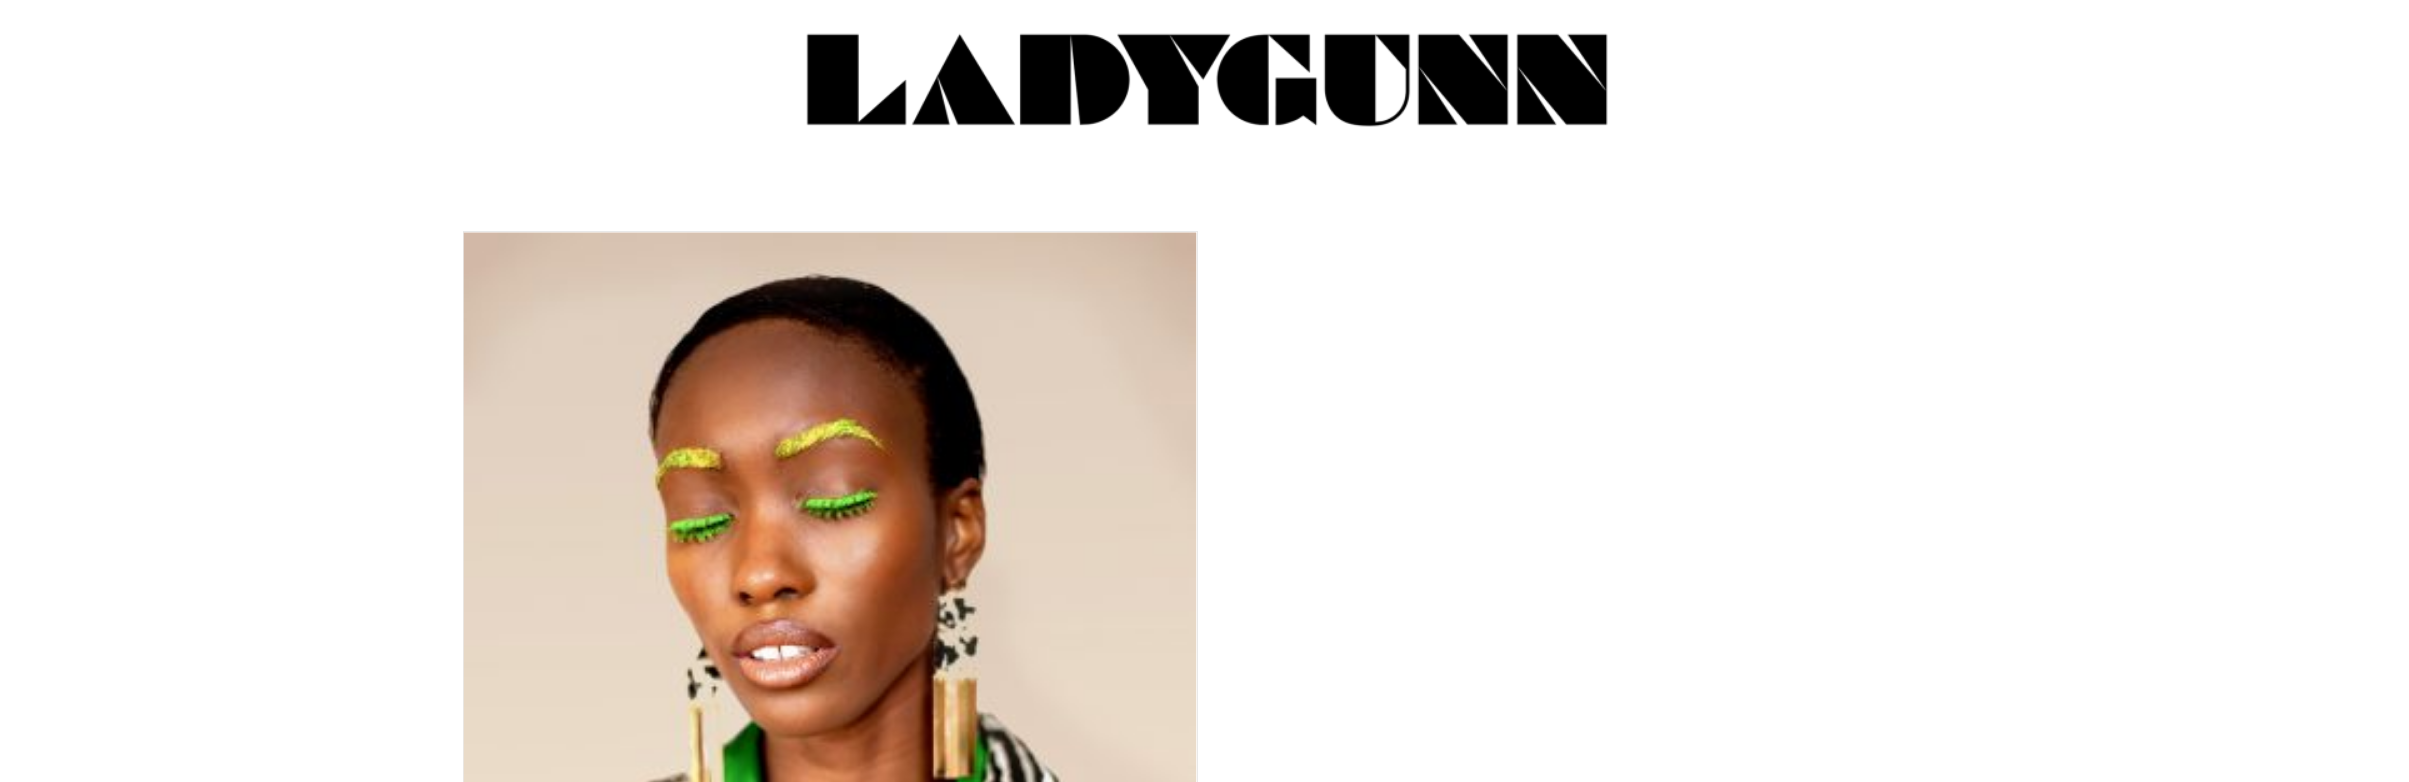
#include <cairo/cairo.h>
#include <math.h>
#include <stddef.h>

static cairo_t *cr;

static void rgb(unsigned color)
{
	cairo_set_source_rgb(cr, (color >> 16) / 255.0, (color >> 8 & 255) / 255.0, (color & 255) / 255.0);
}

static void image(const char *path, double x, double y, double w, double h)
{
	cairo_surface_t *image = cairo_image_surface_create_from_png(path);
	cairo_save(cr);
	cairo_set_source_surface(cr, image, x, y);
	cairo_rectangle(cr, x, y, w, h);
	cairo_fill(cr);
	cairo_restore(cr);
	cairo_surface_destroy(image);
}

int main(void) {
	cairo_surface_t *surface = cairo_image_surface_create(CAIRO_FORMAT_RGB24, 2409, 782);
	cr = cairo_create(surface);
	cairo_font_options_t *options = cairo_font_options_create();
	cairo_font_options_set_hint_metrics(options, CAIRO_HINT_METRICS_OFF);
	cairo_font_options_set_hint_style(options, CAIRO_HINT_STYLE_NONE);
	cairo_set_font_options(cr, options);
	cairo_set_miter_limit(cr, 4);
	rgb(0xffffff);
	cairo_paint(cr);
	image("img/1.png", 806, 33, 802, 94);
	cairo_rectangle(cr, 463.5, 231.5, 734, 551);
	rgb(0xe9e9e9);
	cairo_set_line_width(cr, 1);
	cairo_stroke(cr);
	image("img/2.png", 463, 232, 734, 550);
	cairo_surface_write_to_png(surface, "page.png");
	cairo_font_options_destroy(options);
	cairo_destroy(cr);
	cairo_surface_destroy(surface);
	return 0;
}
